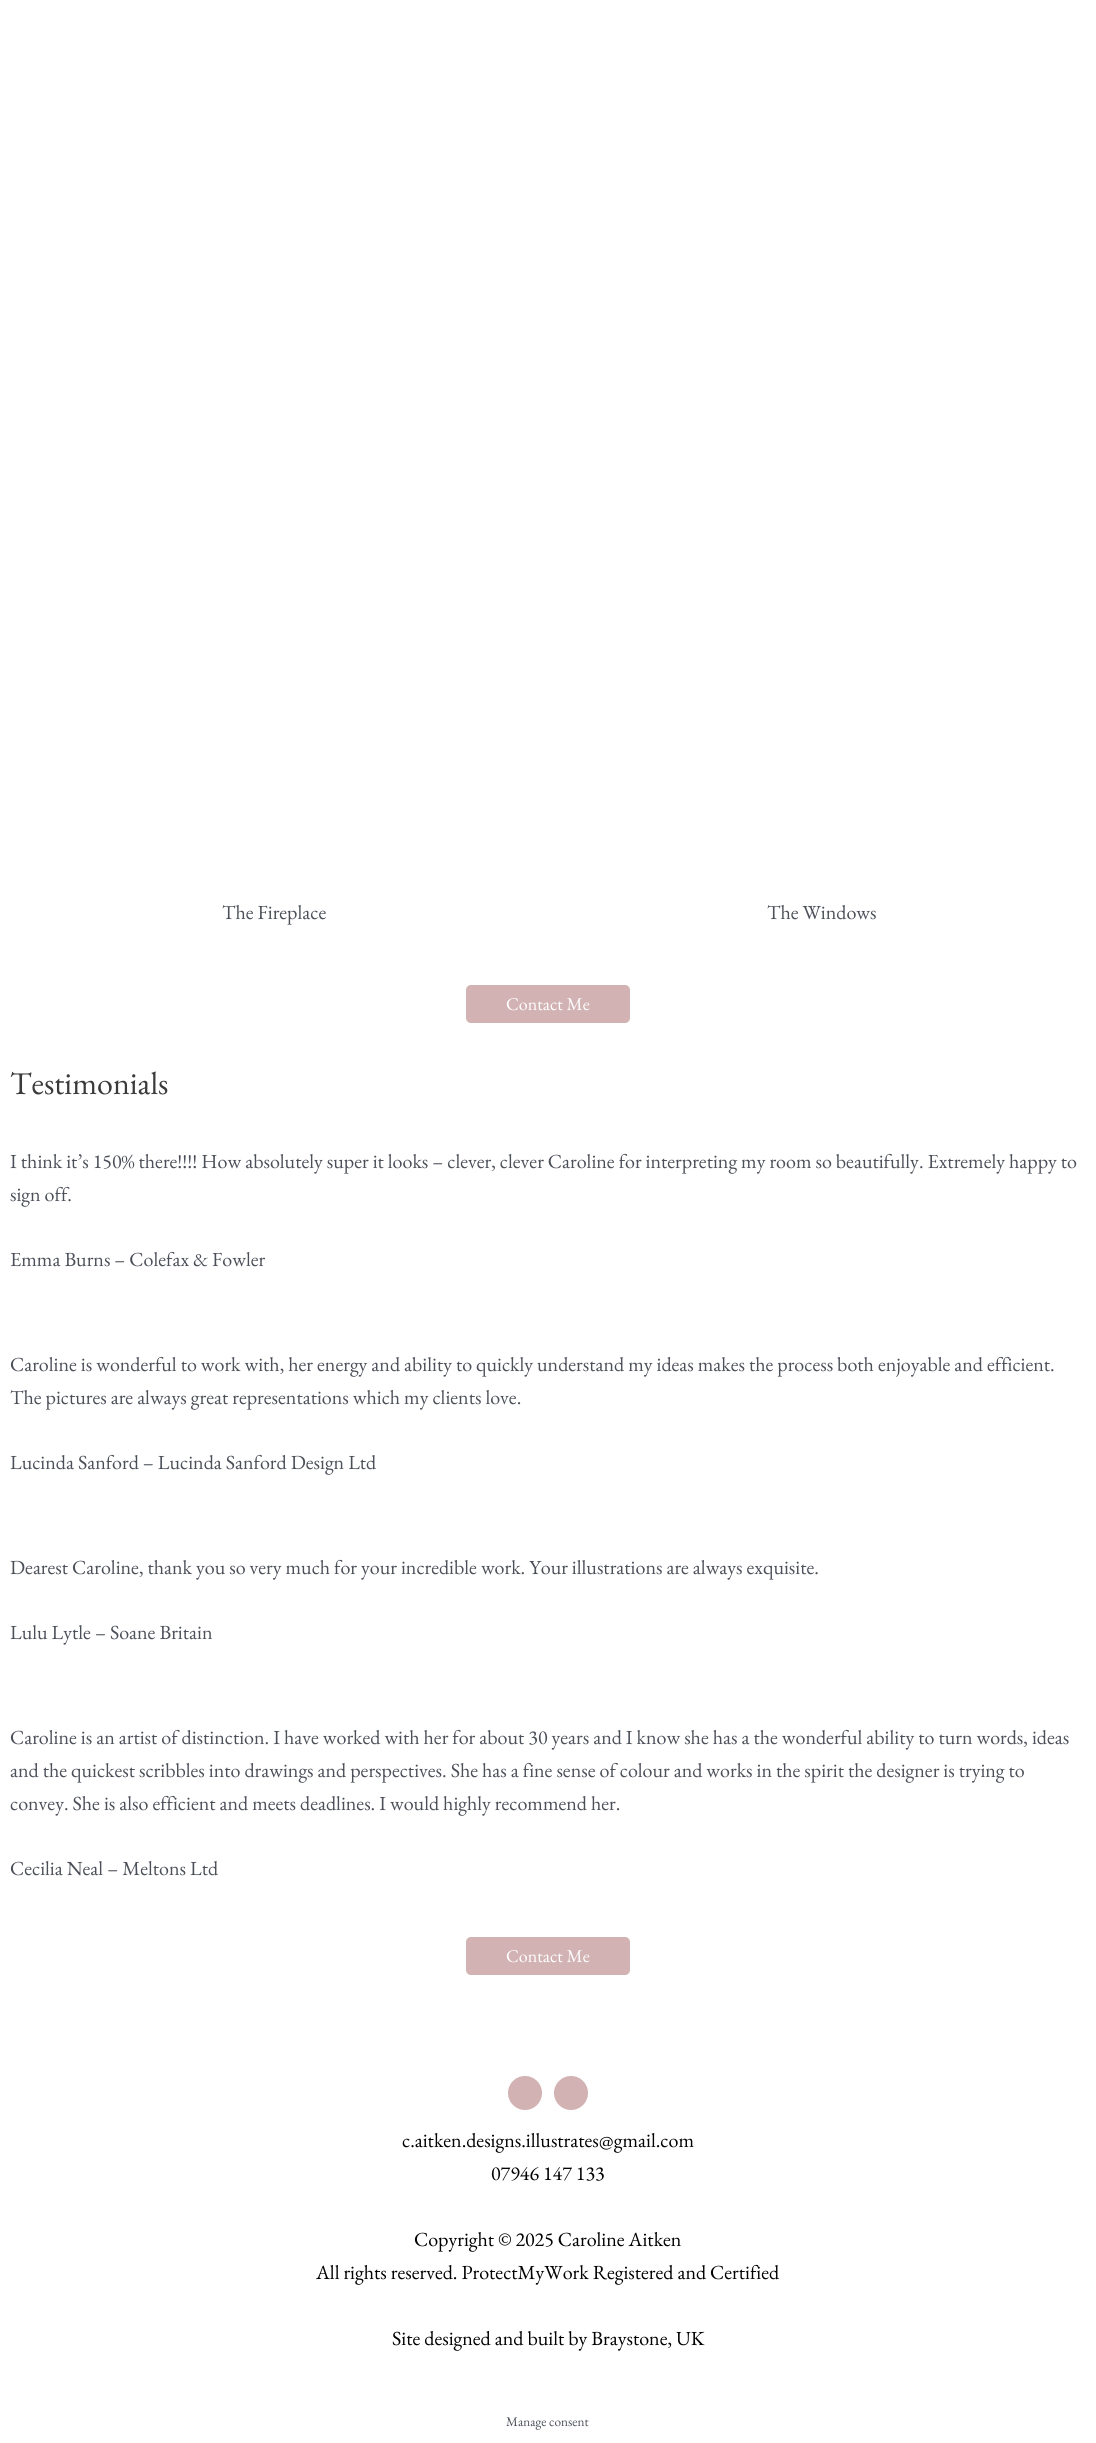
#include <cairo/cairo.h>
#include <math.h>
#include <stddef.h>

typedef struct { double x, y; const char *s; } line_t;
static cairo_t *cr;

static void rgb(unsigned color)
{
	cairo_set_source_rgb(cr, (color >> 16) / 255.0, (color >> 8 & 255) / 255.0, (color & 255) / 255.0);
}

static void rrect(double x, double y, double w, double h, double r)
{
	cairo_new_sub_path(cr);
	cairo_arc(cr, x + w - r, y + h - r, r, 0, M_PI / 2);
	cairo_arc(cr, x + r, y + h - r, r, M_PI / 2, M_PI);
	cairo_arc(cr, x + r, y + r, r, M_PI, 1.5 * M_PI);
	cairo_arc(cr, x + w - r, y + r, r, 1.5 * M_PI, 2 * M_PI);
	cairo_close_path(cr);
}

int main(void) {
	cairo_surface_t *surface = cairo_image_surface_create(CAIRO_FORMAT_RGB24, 1096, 2443);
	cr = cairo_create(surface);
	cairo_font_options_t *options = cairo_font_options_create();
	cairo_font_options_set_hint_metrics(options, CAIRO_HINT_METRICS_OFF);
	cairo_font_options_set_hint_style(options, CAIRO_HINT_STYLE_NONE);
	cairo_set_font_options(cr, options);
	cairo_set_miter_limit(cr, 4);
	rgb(0xffffff);
	cairo_paint(cr);
	rgb(0xd2b2b3);
	rrect(466, 985, 164, 38, 5);
	cairo_fill(cr);
	rrect(466, 1937, 164, 38, 5);
	cairo_fill(cr);
	cairo_arc(cr, 525, 2093, 17, 0, 2 * M_PI);
	cairo_fill(cr);
	cairo_arc(cr, 571, 2093, 17, 0, 2 * M_PI);
	cairo_fill(cr);
	cairo_select_font_face(cr, "EB Garamond", CAIRO_FONT_SLANT_NORMAL, CAIRO_FONT_WEIGHT_NORMAL);
	cairo_set_font_size(cr, 20);
	rgb(0x4b4f58);
	cairo_move_to(cr, 222, 919);
	cairo_show_text(cr, "The Fireplace");
	cairo_move_to(cr, 767, 919);
	cairo_show_text(cr, "The Windows");
	cairo_set_font_size(cr, 18);
	rgb(0xffffff);
	cairo_move_to(cr, 506, 1010);
	cairo_show_text(cr, "Contact Me");
	cairo_set_font_size(cr, 32);
	rgb(0x3a3a3a);
	cairo_move_to(cr, 10, 1094);
	cairo_show_text(cr, "Testimonials");
	cairo_set_font_size(cr, 20);
	rgb(0x4b4f58);
	{
		static const line_t items[] = {
			{10, 1168, "I think it’s 150% there!!!! How absolutely super it looks – clever, clever Caroline for interpreting my room so beautifully. Extremely happy to"},
			{10, 1201, "sign off."},
			{10, 1266, "Emma Burns – Colefax & Fowler"},
			{10, 1371, "Caroline is wonderful to work with, her energy and ability to quickly understand my ideas makes the process both enjoyable and efficient."},
			{10, 1404, "The pictures are always great representations which my clients love."},
			{10, 1469, "Lucinda Sanford – Lucinda Sanford Design Ltd"},
			{10, 1574, "Dearest Caroline, thank you so very much for your incredible work. Your illustrations are always exquisite."},
			{10, 1639, "Lulu Lytle – Soane Britain"},
			{10, 1744, "Caroline is an artist of distinction. I have worked with her for about 30 years and I know she has a the wonderful ability to turn words, ideas"},
			{10, 1777, "and the quickest scribbles into drawings and perspectives. She has a fine sense of colour and works in the spirit the designer is trying to"},
			{10, 1810, "convey. She is also efficient and meets deadlines. I would highly recommend her."},
			{10, 1875, "Cecilia Neal – Meltons Ltd"},
		};
		for (size_t i = 0; i < sizeof items / sizeof *items; i++) {
			cairo_move_to(cr, items[i].x, items[i].y);
			cairo_show_text(cr, items[i].s);
		}
	}
	cairo_set_font_size(cr, 18);
	rgb(0xffffff);
	cairo_move_to(cr, 506, 1962);
	cairo_show_text(cr, "Contact Me");
	cairo_set_font_size(cr, 20);
	rgb(0x000000);
	{
		static const line_t items[] = {
			{402, 2147, "c.aitken.designs.illustrates@gmail.com"},
			{491, 2180, "07946 147 133"},
			{414, 2246, "Copyright © 2025 Caroline Aitken"},
			{316, 2279, "All rights reserved. ProtectMyWork Registered and Certified"},
			{392, 2345, "Site designed and built by Braystone, UK"},
		};
		for (size_t i = 0; i < sizeof items / sizeof *items; i++) {
			cairo_move_to(cr, items[i].x, items[i].y);
			cairo_show_text(cr, items[i].s);
		}
	}
	cairo_set_font_size(cr, 13.25);
	rgb(0x4b4f58);
	cairo_move_to(cr, 506, 2426);
	cairo_show_text(cr, "Manage consent");
	cairo_surface_write_to_png(surface, "page.png");
	cairo_font_options_destroy(options);
	cairo_destroy(cr);
	cairo_surface_destroy(surface);
	return 0;
}
